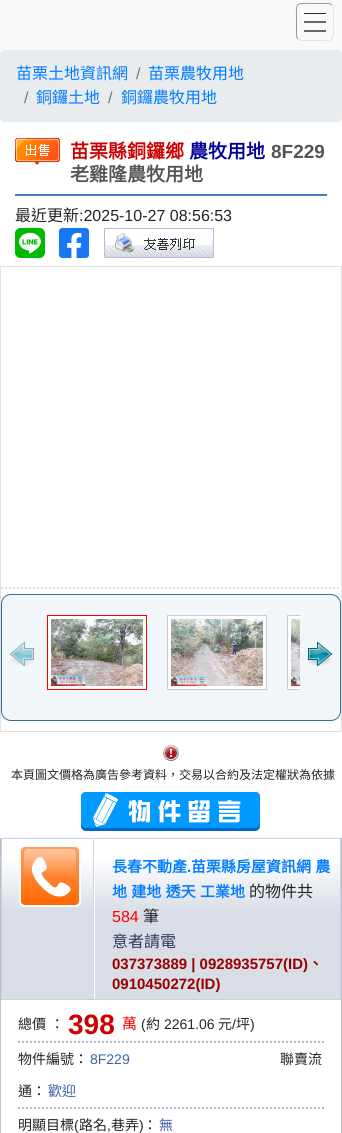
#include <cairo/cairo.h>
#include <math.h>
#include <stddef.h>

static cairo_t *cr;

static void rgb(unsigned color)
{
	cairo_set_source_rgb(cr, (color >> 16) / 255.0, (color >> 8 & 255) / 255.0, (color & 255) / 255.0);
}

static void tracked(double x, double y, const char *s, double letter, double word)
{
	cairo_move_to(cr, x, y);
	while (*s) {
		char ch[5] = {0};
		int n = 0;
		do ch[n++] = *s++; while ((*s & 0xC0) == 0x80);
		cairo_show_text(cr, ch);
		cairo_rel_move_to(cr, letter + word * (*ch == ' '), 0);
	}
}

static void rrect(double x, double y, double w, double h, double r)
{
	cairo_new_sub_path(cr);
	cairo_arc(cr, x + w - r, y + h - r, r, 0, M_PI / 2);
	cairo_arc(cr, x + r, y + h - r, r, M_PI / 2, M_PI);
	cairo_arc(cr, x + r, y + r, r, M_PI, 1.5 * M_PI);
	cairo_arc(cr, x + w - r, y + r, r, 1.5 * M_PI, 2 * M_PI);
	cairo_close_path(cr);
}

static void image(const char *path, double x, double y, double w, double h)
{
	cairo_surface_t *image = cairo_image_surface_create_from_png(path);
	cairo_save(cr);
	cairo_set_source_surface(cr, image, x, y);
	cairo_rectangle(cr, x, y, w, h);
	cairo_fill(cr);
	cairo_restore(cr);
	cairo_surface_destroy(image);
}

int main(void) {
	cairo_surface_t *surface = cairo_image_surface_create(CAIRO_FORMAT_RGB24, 342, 1133);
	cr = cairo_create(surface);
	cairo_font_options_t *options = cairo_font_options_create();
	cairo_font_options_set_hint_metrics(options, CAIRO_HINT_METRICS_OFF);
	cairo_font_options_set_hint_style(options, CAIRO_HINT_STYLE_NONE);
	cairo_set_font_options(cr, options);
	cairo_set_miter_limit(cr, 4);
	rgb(0xffffff);
	cairo_paint(cr);
	rgb(0xf8f9fa);
	cairo_rectangle(cr, 0, 0, 342, 50);
	cairo_fill(cr);
	cairo_new_path(cr);
	cairo_move_to(cr, 304, 22);
	cairo_line_to(cr, 326, 22);
	rgb(0x2b2b2b);
	cairo_set_line_width(cr, 1.4);
	cairo_stroke(cr);
	cairo_rectangle(cr, 304, 13, 22, 1);
	cairo_fill(cr);
	cairo_new_path(cr);
	cairo_move_to(cr, 304, 31);
	cairo_line_to(cr, 326, 31);
	cairo_stroke(cr);
	cairo_new_path(cr);
	cairo_move_to(cr, 332, 5);
	cairo_curve_to(cr, 334, 7, 333.5, 10, 333.5, 12.5);
	cairo_line_to(cr, 333.5, 22);
	cairo_curve_to(cr, 333.5, 43, 336, 40.5, 315, 40.5);
	cairo_line_to(cr, 305.5, 40.5);
	cairo_curve_to(cr, 303, 40.5, 300, 41, 298, 39);
	rgb(0xe4e4e4);
	cairo_set_line_width(cr, 1);
	cairo_stroke(cr);
	cairo_new_path(cr);
	cairo_move_to(cr, 298, 39);
	cairo_curve_to(cr, 296, 37, 296.5, 34, 296.5, 31.5);
	cairo_line_to(cr, 296.5, 22);
	cairo_curve_to(cr, 296.5, 1, 294, 3.5, 315, 3.5);
	cairo_line_to(cr, 324.5, 3.5);
	cairo_curve_to(cr, 327, 3.5, 330, 3, 332, 5);
	rgb(0x989898);
	cairo_stroke(cr);
	rgb(0xe9ecef);
	rrect(0, 50, 342, 72, 4);
	cairo_fill(cr);
	image("img/1.png", 15, 138, 45, 27);
	rgb(0x4a77ca);
	cairo_rectangle(cr, 15, 194, 312, 2);
	cairo_fill(cr);
	image("img/2.png", 15, 228, 30, 30);
	image("img/3.png", 59, 228, 30, 30);
	image("img/4.png", 104, 228, 110, 30);
	cairo_rectangle(cr, 0.5, 266.5, 341, 465);
	rgb(0xe1e1e1);
	cairo_stroke(cr);
	cairo_new_path(cr);
	cairo_move_to(cr, 1, 588);
	cairo_line_to(cr, 341, 588);
	cairo_set_line_width(cr, 2);
	cairo_set_dash(cr, (double[]){2, 2}, 2, 0);
	cairo_stroke(cr);
	rgb(0xf0f6f9);
	rrect(1.5, 594.5, 339, 126, 9.5);
	cairo_fill_preserve(cr);
	rgb(0x346f97);
	cairo_set_line_width(cr, 1);
	cairo_set_dash(cr, NULL, 0, 0);
	cairo_stroke(cr);
	image("img/5.png", 10, 642, 25, 24);
	rgb(0xffffff);
	cairo_rectangle(cr, 47.5, 615.5, 99, 74);
	cairo_fill_preserve(cr);
	rgb(0xff0000);
	cairo_stroke(cr);
	image("img/6.png", 51, 619, 92, 67);
	rgb(0xffffff);
	cairo_rectangle(cr, 167.5, 615.5, 99, 74);
	cairo_fill_preserve(cr);
	rgb(0xcccccc);
	cairo_stroke(cr);
	image("img/7.png", 171, 619, 92, 67);
	rgb(0xffffff);
	cairo_rectangle(cr, 288, 616, 12, 73);
	cairo_fill(cr);
	cairo_save(cr);
	cairo_rectangle(cr, 42, 615, 258, 85);
	cairo_clip(cr);
	cairo_rectangle(cr, 287.5, 615.5, 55, 74);
	rgb(0xcccccc);
	cairo_stroke(cr);
	cairo_restore(cr);
	image("img/8.png", 291, 619, 9, 67);
	image("img/9.png", 307, 642, 25, 24);
	image("img/10.png", 163, 745, 16, 16);
	image("img/11.png", 81, 792, 179, 39);
	rgb(0xc1c1c1);
	cairo_rectangle(cr, 341, 838, 1, 295);
	cairo_fill(cr);
	cairo_rectangle(cr, 0, 838, 1, 295);
	cairo_fill(cr);
	cairo_rectangle(cr, 1.5, 838.5, 339, 161);
	rgb(0xc7cee9);
	cairo_stroke(cr);
	image("img/12.png", 2, 839, 338, 160);
	cairo_new_path(cr);
	cairo_move_to(cr, 18, 1042);
	cairo_line_to(cr, 326, 1042);
	rgb(0xb8b8d3);
	cairo_set_line_width(cr, 2);
	cairo_set_dash(cr, (double[]){2, 2}, 2, 0);
	cairo_stroke(cr);
	cairo_new_path(cr);
	cairo_move_to(cr, 18, 1108);
	cairo_line_to(cr, 326, 1108);
	cairo_stroke(cr);
	cairo_select_font_face(cr, "Noto Sans CJK TC", CAIRO_FONT_SLANT_NORMAL, CAIRO_FONT_WEIGHT_NORMAL);
	cairo_set_font_size(cr, 16);
	rgb(0x007bff);
	cairo_move_to(cr, 16, 79);
	cairo_show_text(cr, "苗栗土地資訊網");
	cairo_select_font_face(cr, "Liberation Sans", CAIRO_FONT_SLANT_NORMAL, CAIRO_FONT_WEIGHT_NORMAL);
	rgb(0x6c757d);
	cairo_move_to(cr, 136, 79);
	cairo_show_text(cr, "/");
	cairo_select_font_face(cr, "Noto Sans CJK TC", CAIRO_FONT_SLANT_NORMAL, CAIRO_FONT_WEIGHT_NORMAL);
	rgb(0x007bff);
	cairo_move_to(cr, 148, 79);
	cairo_show_text(cr, "苗栗農牧用地");
	cairo_select_font_face(cr, "Liberation Sans", CAIRO_FONT_SLANT_NORMAL, CAIRO_FONT_WEIGHT_NORMAL);
	rgb(0x6c757d);
	cairo_move_to(cr, 24, 103);
	cairo_show_text(cr, "/");
	cairo_select_font_face(cr, "Noto Sans CJK TC", CAIRO_FONT_SLANT_NORMAL, CAIRO_FONT_WEIGHT_NORMAL);
	rgb(0x007bff);
	cairo_move_to(cr, 36, 103);
	cairo_show_text(cr, "銅鑼土地");
	cairo_select_font_face(cr, "Liberation Sans", CAIRO_FONT_SLANT_NORMAL, CAIRO_FONT_WEIGHT_NORMAL);
	rgb(0x6c757d);
	cairo_move_to(cr, 108, 103);
	cairo_show_text(cr, "/");
	cairo_select_font_face(cr, "Noto Sans CJK TC", CAIRO_FONT_SLANT_NORMAL, CAIRO_FONT_WEIGHT_NORMAL);
	rgb(0x007bff);
	cairo_move_to(cr, 121, 103);
	cairo_show_text(cr, "銅鑼農牧用地");
	cairo_select_font_face(cr, "Noto Sans CJK TC", CAIRO_FONT_SLANT_NORMAL, CAIRO_FONT_WEIGHT_BOLD);
	cairo_set_font_size(cr, 19);
	rgb(0xcc0000);
	cairo_move_to(cr, 70, 158);
	cairo_show_text(cr, "苗栗縣銅鑼鄉");
	rgb(0x000099);
	cairo_move_to(cr, 189, 158);
	cairo_show_text(cr, "農牧用地");
	cairo_select_font_face(cr, "Liberation Sans", CAIRO_FONT_SLANT_NORMAL, CAIRO_FONT_WEIGHT_BOLD);
	rgb(0x555555);
	cairo_move_to(cr, 271, 158);
	cairo_show_text(cr, "8F229");
	cairo_select_font_face(cr, "Noto Sans CJK TC", CAIRO_FONT_SLANT_NORMAL, CAIRO_FONT_WEIGHT_BOLD);
	cairo_move_to(cr, 70, 181);
	cairo_show_text(cr, "老雞隆農牧用地");
	cairo_select_font_face(cr, "Noto Sans CJK TC", CAIRO_FONT_SLANT_NORMAL, CAIRO_FONT_WEIGHT_NORMAL);
	cairo_set_font_size(cr, 16);
	rgb(0x212529);
	cairo_move_to(cr, 15, 221);
	cairo_show_text(cr, "最近更新");
	cairo_select_font_face(cr, "Liberation Sans", CAIRO_FONT_SLANT_NORMAL, CAIRO_FONT_WEIGHT_NORMAL);
	cairo_move_to(cr, 79, 221);
	cairo_show_text(cr, ":2025-10-27 08:56:53");
	cairo_select_font_face(cr, "Noto Sans CJK TC", CAIRO_FONT_SLANT_NORMAL, CAIRO_FONT_WEIGHT_NORMAL);
	cairo_set_font_size(cr, 12);
	cairo_move_to(cr, 11, 779);
	cairo_show_text(cr, "本頁圖文價格為廣告參考資料，交易以合約及法定權狀為依據");
	cairo_select_font_face(cr, "Noto Sans CJK TC", CAIRO_FONT_SLANT_NORMAL, CAIRO_FONT_WEIGHT_BOLD);
	cairo_set_font_size(cr, 15);
	rgb(0x007bff);
	cairo_move_to(cr, 112, 872);
	cairo_show_text(cr, "長春不動產");
	cairo_select_font_face(cr, "Liberation Sans", CAIRO_FONT_SLANT_NORMAL, CAIRO_FONT_WEIGHT_BOLD);
	cairo_move_to(cr, 187, 872);
	cairo_show_text(cr, ".");
	cairo_select_font_face(cr, "Noto Sans CJK TC", CAIRO_FONT_SLANT_NORMAL, CAIRO_FONT_WEIGHT_BOLD);
	tracked(191, 872, "苗栗縣房屋資訊網 農", 0, 1);
	tracked(112, 897, "地 建地 透天 工業地", 0, 1);
	cairo_select_font_face(cr, "Noto Sans CJK TC", CAIRO_FONT_SLANT_NORMAL, CAIRO_FONT_WEIGHT_NORMAL);
	cairo_set_font_size(cr, 16);
	rgb(0x212529);
	cairo_move_to(cr, 249, 897);
	cairo_show_text(cr, "的物件共");
	cairo_select_font_face(cr, "Liberation Sans", CAIRO_FONT_SLANT_NORMAL, CAIRO_FONT_WEIGHT_NORMAL);
	rgb(0xff0000);
	cairo_move_to(cr, 112, 922);
	cairo_show_text(cr, "584");
	cairo_select_font_face(cr, "Noto Sans CJK TC", CAIRO_FONT_SLANT_NORMAL, CAIRO_FONT_WEIGHT_NORMAL);
	rgb(0x212529);
	cairo_move_to(cr, 143, 922);
	cairo_show_text(cr, "筆");
	rgb(0x2d375b);
	cairo_move_to(cr, 112, 947);
	cairo_show_text(cr, "意者請電");
	cairo_select_font_face(cr, "Liberation Sans", CAIRO_FONT_SLANT_NORMAL, CAIRO_FONT_WEIGHT_BOLD);
	cairo_set_font_size(cr, 15);
	rgb(0x990000);
	cairo_move_to(cr, 112, 969);
	cairo_show_text(cr, "037373889 | 0928935757(ID)");
	cairo_select_font_face(cr, "Noto Sans CJK TC", CAIRO_FONT_SLANT_NORMAL, CAIRO_FONT_WEIGHT_BOLD);
	cairo_move_to(cr, 308, 969);
	cairo_show_text(cr, "、");
	cairo_select_font_face(cr, "Liberation Sans", CAIRO_FONT_SLANT_NORMAL, CAIRO_FONT_WEIGHT_BOLD);
	cairo_move_to(cr, 112, 989);
	cairo_show_text(cr, "0910450272(ID)");
	cairo_select_font_face(cr, "Noto Sans CJK TC", CAIRO_FONT_SLANT_NORMAL, CAIRO_FONT_WEIGHT_NORMAL);
	cairo_set_font_size(cr, 14);
	rgb(0x212529);
	tracked(18, 1029, "總價 ：", 0, 1);
	cairo_select_font_face(cr, "Liberation Sans", CAIRO_FONT_SLANT_NORMAL, CAIRO_FONT_WEIGHT_BOLD);
	cairo_set_font_size(cr, 28);
	rgb(0xcc0000);
	cairo_move_to(cr, 68, 1034);
	cairo_show_text(cr, "398");
	cairo_select_font_face(cr, "Noto Sans CJK TC", CAIRO_FONT_SLANT_NORMAL, CAIRO_FONT_WEIGHT_NORMAL);
	cairo_set_font_size(cr, 15);
	rgb(0xff0000);
	cairo_move_to(cr, 122, 1029);
	cairo_show_text(cr, "萬");
	cairo_select_font_face(cr, "Liberation Sans", CAIRO_FONT_SLANT_NORMAL, CAIRO_FONT_WEIGHT_NORMAL);
	cairo_set_font_size(cr, 14);
	rgb(0x212529);
	cairo_move_to(cr, 141, 1029);
	cairo_show_text(cr, "(");
	cairo_select_font_face(cr, "Noto Sans CJK TC", CAIRO_FONT_SLANT_NORMAL, CAIRO_FONT_WEIGHT_NORMAL);
	cairo_move_to(cr, 146, 1029);
	cairo_show_text(cr, "約");
	cairo_select_font_face(cr, "Liberation Sans", CAIRO_FONT_SLANT_NORMAL, CAIRO_FONT_WEIGHT_NORMAL);
	cairo_move_to(cr, 164, 1029);
	cairo_show_text(cr, "2261.06");
	cairo_select_font_face(cr, "Noto Sans CJK TC", CAIRO_FONT_SLANT_NORMAL, CAIRO_FONT_WEIGHT_NORMAL);
	cairo_move_to(cr, 218, 1029);
	cairo_show_text(cr, "元");
	cairo_select_font_face(cr, "Liberation Sans", CAIRO_FONT_SLANT_NORMAL, CAIRO_FONT_WEIGHT_NORMAL);
	cairo_move_to(cr, 232, 1029);
	cairo_show_text(cr, "/");
	cairo_select_font_face(cr, "Noto Sans CJK TC", CAIRO_FONT_SLANT_NORMAL, CAIRO_FONT_WEIGHT_NORMAL);
	cairo_move_to(cr, 236, 1029);
	cairo_show_text(cr, "坪");
	cairo_select_font_face(cr, "Liberation Sans", CAIRO_FONT_SLANT_NORMAL, CAIRO_FONT_WEIGHT_NORMAL);
	cairo_move_to(cr, 250, 1029);
	cairo_show_text(cr, ")");
	cairo_select_font_face(cr, "Noto Sans CJK TC", CAIRO_FONT_SLANT_NORMAL, CAIRO_FONT_WEIGHT_NORMAL);
	cairo_move_to(cr, 18, 1064);
	cairo_show_text(cr, "物件編號：");
	cairo_select_font_face(cr, "Liberation Sans", CAIRO_FONT_SLANT_NORMAL, CAIRO_FONT_WEIGHT_NORMAL);
	rgb(0x3e62a6);
	cairo_move_to(cr, 90, 1064);
	cairo_show_text(cr, "8F229");
	cairo_select_font_face(cr, "Noto Sans CJK TC", CAIRO_FONT_SLANT_NORMAL, CAIRO_FONT_WEIGHT_NORMAL);
	rgb(0x212529);
	cairo_move_to(cr, 280, 1064);
	cairo_show_text(cr, "聯賣流");
	cairo_move_to(cr, 18, 1096);
	cairo_show_text(cr, "通：");
	rgb(0x3e62a6);
	cairo_move_to(cr, 48, 1096);
	cairo_show_text(cr, "歡迎");
	rgb(0x212529);
	cairo_move_to(cr, 18, 1130);
	cairo_show_text(cr, "明顯目標");
	cairo_select_font_face(cr, "Liberation Sans", CAIRO_FONT_SLANT_NORMAL, CAIRO_FONT_WEIGHT_NORMAL);
	cairo_move_to(cr, 74, 1130);
	cairo_show_text(cr, "(");
	cairo_select_font_face(cr, "Noto Sans CJK TC", CAIRO_FONT_SLANT_NORMAL, CAIRO_FONT_WEIGHT_NORMAL);
	cairo_move_to(cr, 79, 1130);
	cairo_show_text(cr, "路名");
	cairo_select_font_face(cr, "Liberation Sans", CAIRO_FONT_SLANT_NORMAL, CAIRO_FONT_WEIGHT_NORMAL);
	cairo_move_to(cr, 107, 1130);
	cairo_show_text(cr, ",");
	cairo_select_font_face(cr, "Noto Sans CJK TC", CAIRO_FONT_SLANT_NORMAL, CAIRO_FONT_WEIGHT_NORMAL);
	cairo_move_to(cr, 111, 1130);
	cairo_show_text(cr, "巷弄");
	cairo_select_font_face(cr, "Liberation Sans", CAIRO_FONT_SLANT_NORMAL, CAIRO_FONT_WEIGHT_NORMAL);
	cairo_move_to(cr, 139, 1130);
	cairo_show_text(cr, ")");
	cairo_select_font_face(cr, "Noto Sans CJK TC", CAIRO_FONT_SLANT_NORMAL, CAIRO_FONT_WEIGHT_NORMAL);
	cairo_move_to(cr, 143, 1130);
	cairo_show_text(cr, "：");
	rgb(0x3e62a6);
	cairo_move_to(cr, 159, 1130);
	cairo_show_text(cr, "無");
	cairo_surface_write_to_png(surface, "page.png");
	cairo_font_options_destroy(options);
	cairo_destroy(cr);
	cairo_surface_destroy(surface);
	return 0;
}
